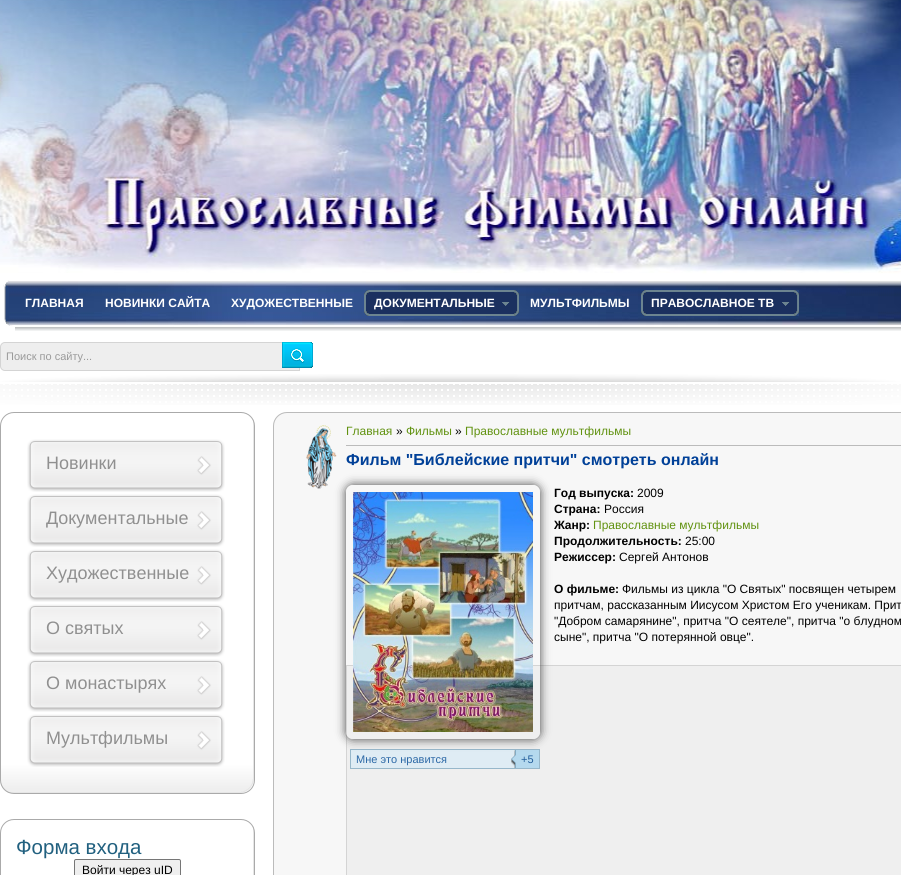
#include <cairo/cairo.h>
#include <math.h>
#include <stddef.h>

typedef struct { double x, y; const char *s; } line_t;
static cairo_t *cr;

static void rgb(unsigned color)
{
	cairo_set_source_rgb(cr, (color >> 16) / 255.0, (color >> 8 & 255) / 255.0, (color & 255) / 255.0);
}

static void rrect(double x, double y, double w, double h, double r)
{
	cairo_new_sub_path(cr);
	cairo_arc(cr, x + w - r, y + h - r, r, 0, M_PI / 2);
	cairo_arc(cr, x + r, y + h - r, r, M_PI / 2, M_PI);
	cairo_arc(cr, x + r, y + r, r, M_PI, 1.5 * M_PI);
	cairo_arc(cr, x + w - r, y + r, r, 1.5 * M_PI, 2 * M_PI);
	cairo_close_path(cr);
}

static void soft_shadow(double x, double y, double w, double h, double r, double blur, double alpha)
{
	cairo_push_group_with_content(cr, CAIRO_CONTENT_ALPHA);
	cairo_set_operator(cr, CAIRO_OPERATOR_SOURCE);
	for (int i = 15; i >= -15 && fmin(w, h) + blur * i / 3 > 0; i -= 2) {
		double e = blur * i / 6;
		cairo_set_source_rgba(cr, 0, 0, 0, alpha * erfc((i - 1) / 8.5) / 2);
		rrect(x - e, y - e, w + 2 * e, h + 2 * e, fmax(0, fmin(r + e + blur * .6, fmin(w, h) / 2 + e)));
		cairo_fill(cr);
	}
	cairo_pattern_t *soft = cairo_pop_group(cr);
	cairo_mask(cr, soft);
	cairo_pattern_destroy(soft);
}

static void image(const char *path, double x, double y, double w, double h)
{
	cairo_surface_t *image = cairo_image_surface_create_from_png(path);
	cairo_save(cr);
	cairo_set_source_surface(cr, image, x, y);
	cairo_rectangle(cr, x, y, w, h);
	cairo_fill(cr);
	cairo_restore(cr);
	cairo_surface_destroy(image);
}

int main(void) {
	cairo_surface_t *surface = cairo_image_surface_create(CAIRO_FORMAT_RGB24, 901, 875);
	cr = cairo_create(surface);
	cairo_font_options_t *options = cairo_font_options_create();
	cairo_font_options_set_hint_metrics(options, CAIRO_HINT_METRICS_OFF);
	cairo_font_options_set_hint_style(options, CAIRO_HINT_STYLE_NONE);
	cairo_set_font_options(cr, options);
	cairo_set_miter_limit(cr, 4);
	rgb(0xffffff);
	cairo_paint(cr);
	image("img/1.png", 0, 0, 901, 280);
	image("img/2.png", 3, 280, 12, 46);
	image("img/3.png", 15, 327, 886, 4);
	image("img/4.png", 15, 280, 886, 47);
	image("img/5.png", 364, 290, 138, 26);
	image("img/6.png", 502, 290, 17, 26);
	image("img/7.png", 641, 290, 141, 26);
	image("img/8.png", 782, 290, 17, 26);
	rgb(0xeeeeee);
	cairo_new_path(cr);
	cairo_move_to(cr, 5, 342.5);
	cairo_line_to(cr, 299.5, 342.5);
	cairo_line_to(cr, 299.5, 370.5);
	cairo_line_to(cr, 5, 370.5);
	cairo_curve_to(cr, 2.5, 370.5, 0.5, 368.5, 0.5, 366);
	cairo_line_to(cr, 0.5, 347);
	cairo_curve_to(cr, 0.5, 344.5, 2.5, 342.5, 5, 342.5);
	cairo_close_path(cr);
	cairo_fill_preserve(cr);
	rgb(0xd4d4d4);
	cairo_set_line_width(cr, 1);
	cairo_stroke(cr);
	image("img/9.png", 282, 342, 31, 26);
	image("img/10.png", 0, 374, 901, 31);
	image("img/11.png", 0, 419, 254, 374);
	rrect(0.5, 412.5, 254, 381, 13.5);
	rgb(0xaaaaaa);
	cairo_stroke(cr);
	image("img/12.png", 27, 439, 198, 53);
	image("img/12.png", 27, 494, 198, 53);
	image("img/12.png", 27, 549, 198, 53);
	image("img/12.png", 27, 604, 198, 53);
	image("img/12.png", 27, 659, 198, 53);
	image("img/13.png", 27, 714, 198, 53);
	image("img/14.png", 253, 826, 1, 49);
	rrect(0.5, 819.5, 254, 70, 13.5);
	cairo_stroke(cr);
	rgb(0xefefef);
	rrect(74.5, 859.5, 106, 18, 1.5);
	cairo_fill_preserve(cr);
	rgb(0x767676);
	cairo_stroke(cr);
	rgb(0xf7f7f7);
	rrect(273, 412, 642, 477, 14);
	cairo_fill(cr);
	image("img/15.png", 306, 425, 31, 64);
	rrect(273.5, 412.5, 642, 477, 13.5);
	rgb(0xbbbbbb);
	cairo_stroke(cr);
	cairo_rectangle(cr, 346, 445, 555, 1);
	cairo_fill(cr);
	rgb(0xefefef);
	cairo_rectangle(cr, 346.5, 665.5, 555, 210);
	cairo_fill_preserve(cr);
	rgb(0xd4d4d4);
	cairo_stroke(cr);
	rgb(0xdfecf4);
	cairo_rectangle(cr, 351, 750, 164, 18);
	cairo_fill(cr);
	cairo_rectangle(cr, 350.5, 749.5, 189, 19);
	rgb(0x97b7ca);
	cairo_stroke(cr);
	image("img/17.png", 511, 750, 5, 18);
	rgb(0xb5d9ee);
	cairo_rectangle(cr, 516, 750, 23, 18);
	cairo_fill(cr);
	cairo_save(cr);
	cairo_set_fill_rule(cr, CAIRO_FILL_RULE_EVEN_ODD);
	cairo_new_path(cr);
	cairo_move_to(cr, 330, 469);
	cairo_line_to(cr, 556, 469);
	cairo_line_to(cr, 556, 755);
	cairo_line_to(cr, 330, 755);
	cairo_close_path(cr);
	cairo_move_to(cr, 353, 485);
	cairo_line_to(cr, 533, 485);
	cairo_curve_to(cr, 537, 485, 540, 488, 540, 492);
	cairo_line_to(cr, 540, 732);
	cairo_curve_to(cr, 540, 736, 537, 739, 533, 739);
	cairo_line_to(cr, 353, 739);
	cairo_curve_to(cr, 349, 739, 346, 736, 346, 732);
	cairo_line_to(cr, 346, 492);
	cairo_curve_to(cr, 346, 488, 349, 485, 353, 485);
	cairo_close_path(cr);
	cairo_clip(cr);
	rgb(0x444444);
	soft_shadow(346, 485, 194, 254, 7, 5, 1);
	cairo_restore(cr);
	image("img/16.png", 353, 492, 180, 240);
	cairo_select_font_face(cr, "Liberation Sans", CAIRO_FONT_SLANT_NORMAL, CAIRO_FONT_WEIGHT_BOLD);
	cairo_set_font_size(cr, 12);
	rgb(0xffffff);
	{
		static const line_t items[] = {
			{25, 307, "ГЛАВНАЯ"},
			{105, 307, "НОВИНКИ САЙТА"},
			{231, 307, "ХУДОЖЕСТВЕННЫЕ"},
			{374, 307, "ДОКУМЕНТАЛЬНЫЕ"},
			{530, 307, "МУЛЬТФИЛЬМЫ"},
			{651, 307, "ПРАВОСЛАВНОЕ ТВ"},
		};
		for (size_t i = 0; i < sizeof items / sizeof *items; i++) {
			cairo_move_to(cr, items[i].x, items[i].y);
			cairo_show_text(cr, items[i].s);
		}
	}
	cairo_select_font_face(cr, "Liberation Sans", CAIRO_FONT_SLANT_NORMAL, CAIRO_FONT_WEIGHT_NORMAL);
	cairo_set_font_size(cr, 11);
	rgb(0x9a9a9a);
	cairo_move_to(cr, 6, 360);
	cairo_show_text(cr, "Поиск по сайту...");
	cairo_set_font_size(cr, 18);
	rgb(0x909090);
	{
		static const line_t items[] = {
			{46, 469, "Новинки"},
			{46, 524, "Документальные"},
			{46, 579, "Художественные"},
			{46, 634, "О святых"},
			{46, 689, "О монастырях"},
			{46, 744, "Мультфильмы"},
		};
		for (size_t i = 0; i < sizeof items / sizeof *items; i++) {
			cairo_move_to(cr, items[i].x, items[i].y);
			cairo_show_text(cr, items[i].s);
		}
	}
	cairo_set_font_size(cr, 20.5);
	rgb(0x21607f);
	cairo_move_to(cr, 16, 854);
	cairo_show_text(cr, "Форма входа");
	cairo_set_font_size(cr, 12);
	rgb(0x000000);
	cairo_move_to(cr, 82, 874);
	cairo_show_text(cr, "Войти через uID");
	rgb(0x619210);
	cairo_move_to(cr, 346, 435);
	cairo_show_text(cr, "Главная");
	rgb(0x000000);
	cairo_move_to(cr, 396, 435);
	cairo_show_text(cr, "»");
	rgb(0x619210);
	cairo_move_to(cr, 406, 435);
	cairo_show_text(cr, "Фильмы");
	rgb(0x000000);
	cairo_move_to(cr, 455, 435);
	cairo_show_text(cr, "»");
	rgb(0x619210);
	cairo_move_to(cr, 465, 435);
	cairo_show_text(cr, "Православные мультфильмы");
	cairo_select_font_face(cr, "Liberation Sans", CAIRO_FONT_SLANT_NORMAL, CAIRO_FONT_WEIGHT_BOLD);
	cairo_set_font_size(cr, 16);
	rgb(0x004098);
	cairo_move_to(cr, 346, 465);
	cairo_show_text(cr, "Фильм \"Библейские притчи\" смотреть онлайн");
	cairo_set_font_size(cr, 12);
	rgb(0x000000);
	cairo_move_to(cr, 554, 497);
	cairo_show_text(cr, "Год выпуска:");
	cairo_select_font_face(cr, "Liberation Sans", CAIRO_FONT_SLANT_NORMAL, CAIRO_FONT_WEIGHT_NORMAL);
	cairo_move_to(cr, 637, 497);
	cairo_show_text(cr, "2009");
	cairo_select_font_face(cr, "Liberation Sans", CAIRO_FONT_SLANT_NORMAL, CAIRO_FONT_WEIGHT_BOLD);
	cairo_move_to(cr, 554, 513);
	cairo_show_text(cr, "Страна:");
	cairo_select_font_face(cr, "Liberation Sans", CAIRO_FONT_SLANT_NORMAL, CAIRO_FONT_WEIGHT_NORMAL);
	cairo_move_to(cr, 604, 513);
	cairo_show_text(cr, "Россия");
	cairo_select_font_face(cr, "Liberation Sans", CAIRO_FONT_SLANT_NORMAL, CAIRO_FONT_WEIGHT_BOLD);
	cairo_move_to(cr, 554, 529);
	cairo_show_text(cr, "Жанр:");
	cairo_select_font_face(cr, "Liberation Sans", CAIRO_FONT_SLANT_NORMAL, CAIRO_FONT_WEIGHT_NORMAL);
	rgb(0x619210);
	cairo_move_to(cr, 593, 529);
	cairo_show_text(cr, "Православные мультфильмы");
	cairo_select_font_face(cr, "Liberation Sans", CAIRO_FONT_SLANT_NORMAL, CAIRO_FONT_WEIGHT_BOLD);
	rgb(0x000000);
	cairo_move_to(cr, 554, 545);
	cairo_show_text(cr, "Продолжительность:");
	cairo_select_font_face(cr, "Liberation Sans", CAIRO_FONT_SLANT_NORMAL, CAIRO_FONT_WEIGHT_NORMAL);
	cairo_move_to(cr, 685, 545);
	cairo_show_text(cr, "25:00");
	cairo_select_font_face(cr, "Liberation Sans", CAIRO_FONT_SLANT_NORMAL, CAIRO_FONT_WEIGHT_BOLD);
	cairo_move_to(cr, 554, 561);
	cairo_show_text(cr, "Режиссер:");
	cairo_select_font_face(cr, "Liberation Sans", CAIRO_FONT_SLANT_NORMAL, CAIRO_FONT_WEIGHT_NORMAL);
	cairo_move_to(cr, 619, 561);
	cairo_show_text(cr, "Сергей Антонов");
	cairo_select_font_face(cr, "Liberation Sans", CAIRO_FONT_SLANT_NORMAL, CAIRO_FONT_WEIGHT_BOLD);
	cairo_move_to(cr, 554, 593);
	cairo_show_text(cr, "О фильме:");
	cairo_select_font_face(cr, "Liberation Sans", CAIRO_FONT_SLANT_NORMAL, CAIRO_FONT_WEIGHT_NORMAL);
	{
		static const line_t items[] = {
			{622, 593, "Фильмы из цикла \"О Святых\" посвящен четырем"},
			{554, 609, "притчам, рассказанным Иисусом Христом Его ученикам. Прит"},
			{554, 625, "\"Добром самарянине\", притча \"О сеятеле\", притча \"о блудном"},
			{554, 641, "сыне\", притча \"О потерянной овце\"."},
		};
		for (size_t i = 0; i < sizeof items / sizeof *items; i++) {
			cairo_move_to(cr, items[i].x, items[i].y);
			cairo_show_text(cr, items[i].s);
		}
	}
	cairo_set_font_size(cr, 11);
	rgb(0x2c68a6);
	cairo_move_to(cr, 356, 763);
	cairo_show_text(cr, "Mне это нравится");
	rgb(0x235e9b);
	cairo_move_to(cr, 521, 763);
	cairo_show_text(cr, "+5");
	cairo_surface_write_to_png(surface, "page.png");
	cairo_font_options_destroy(options);
	cairo_destroy(cr);
	cairo_surface_destroy(surface);
	return 0;
}
